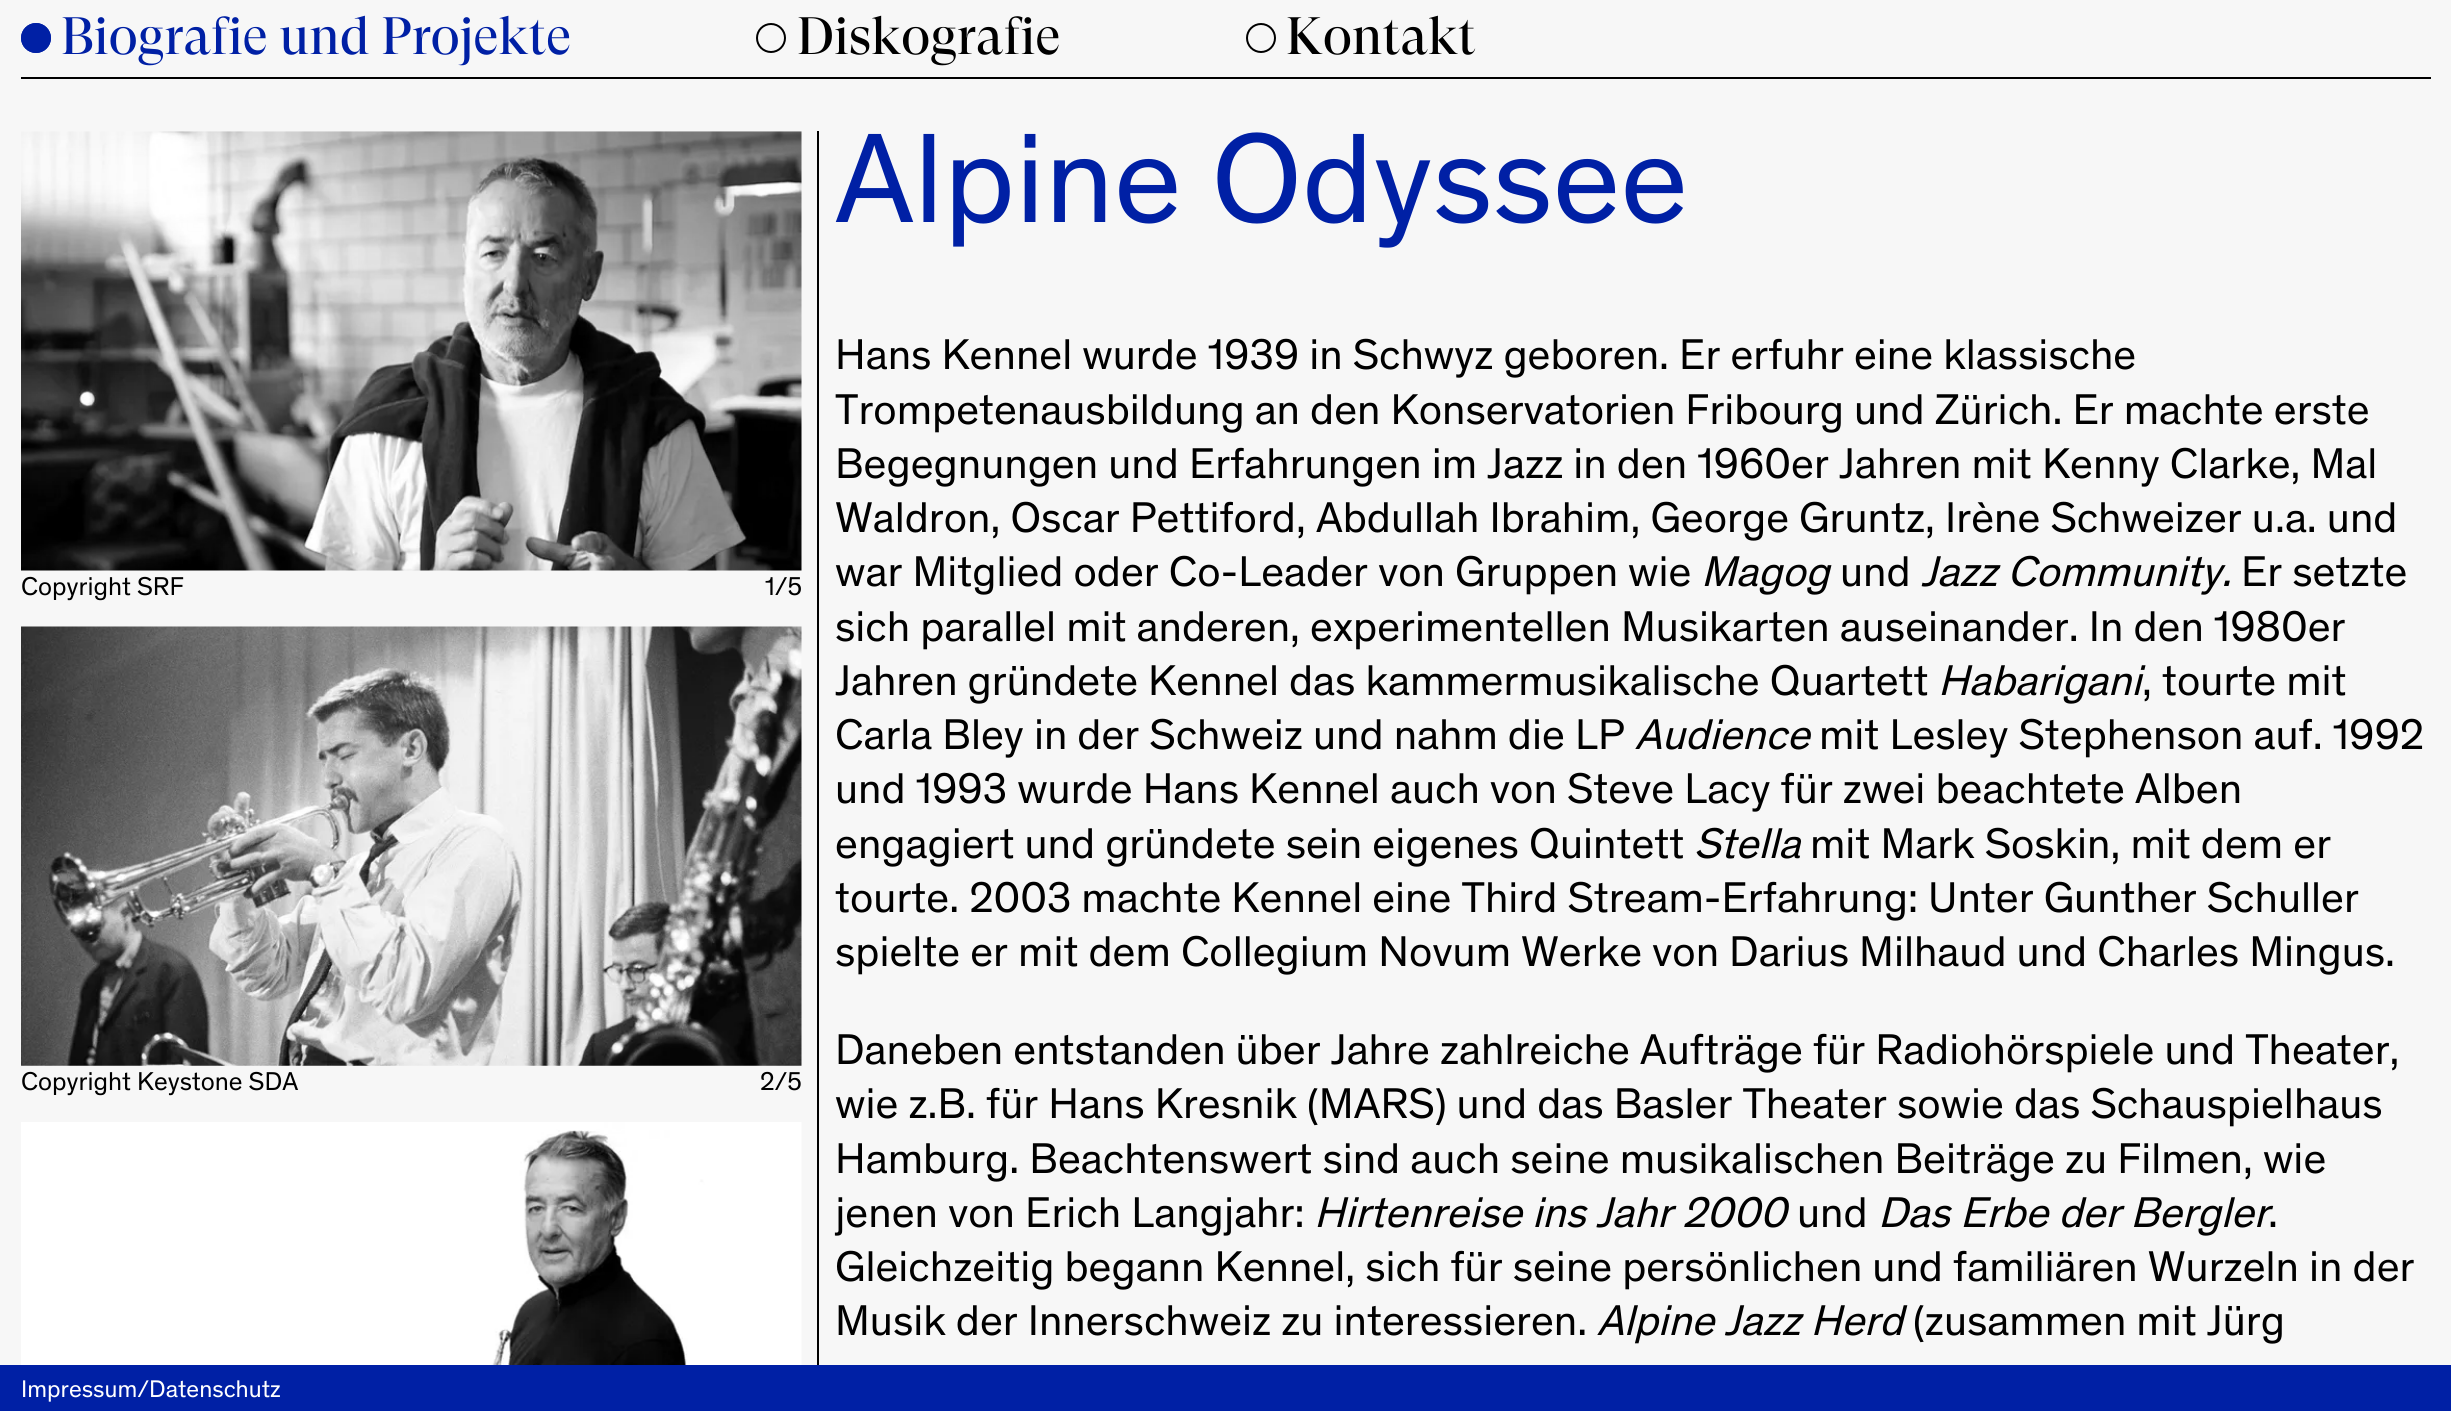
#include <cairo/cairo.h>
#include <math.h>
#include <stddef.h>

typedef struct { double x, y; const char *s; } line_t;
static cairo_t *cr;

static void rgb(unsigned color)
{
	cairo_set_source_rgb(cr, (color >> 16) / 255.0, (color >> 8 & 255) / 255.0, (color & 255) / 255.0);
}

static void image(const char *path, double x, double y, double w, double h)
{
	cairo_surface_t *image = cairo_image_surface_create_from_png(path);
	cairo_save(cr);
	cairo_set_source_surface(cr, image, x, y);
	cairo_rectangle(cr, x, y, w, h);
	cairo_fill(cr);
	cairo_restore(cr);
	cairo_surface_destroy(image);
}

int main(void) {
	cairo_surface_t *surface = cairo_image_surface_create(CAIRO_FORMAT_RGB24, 2451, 1411);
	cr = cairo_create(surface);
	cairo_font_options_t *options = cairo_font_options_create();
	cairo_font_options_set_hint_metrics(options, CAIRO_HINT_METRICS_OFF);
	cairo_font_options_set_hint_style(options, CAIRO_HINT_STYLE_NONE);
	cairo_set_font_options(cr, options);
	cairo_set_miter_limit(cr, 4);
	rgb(0xf7f7f7);
	cairo_paint(cr);
	rgb(0x000000);
	cairo_rectangle(cr, 21, 77, 2410, 2);
	cairo_fill(cr);
	cairo_arc(cr, 36, 38, 14, 0, 2 * M_PI);
	rgb(0x0020a5);
	cairo_stroke(cr);
	cairo_arc(cr, 36, 38, 14, 0, 2 * M_PI);
	cairo_fill_preserve(cr);
	cairo_stroke(cr);
	cairo_arc(cr, 771, 38, 14, 0, 2 * M_PI);
	rgb(0x000000);
	cairo_stroke(cr);
	cairo_arc(cr, 1261, 38, 14, 0, 2 * M_PI);
	cairo_stroke(cr);
	image("img/1.png", 21, 131, 781, 440);
	image("img/2.png", 21, 626, 781, 440);
	image("img/3.png", 21, 1122, 781, 243);
	cairo_rectangle(cr, 817, 131, 2, 1234);
	cairo_fill(cr);
	rgb(0x0020a5);
	cairo_rectangle(cr, 0, 1365, 2451, 46);
	cairo_fill(cr);
	cairo_select_font_face(cr, "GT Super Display", CAIRO_FONT_SLANT_NORMAL, CAIRO_FONT_WEIGHT_NORMAL);
	cairo_set_font_size(cr, 52.5);
	cairo_move_to(cr, 61, 54);
	cairo_show_text(cr, "Biografie und Projekte");
	rgb(0x000000);
	cairo_move_to(cr, 797, 54);
	cairo_show_text(cr, "Diskografie");
	cairo_move_to(cr, 1286, 54);
	cairo_show_text(cr, "Kontakt");
	cairo_select_font_face(cr, "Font", CAIRO_FONT_SLANT_NORMAL, CAIRO_FONT_WEIGHT_NORMAL);
	cairo_set_font_size(cr, 26.25);
	{
		static const line_t items[] = {
			{21, 595, "Copyright SRF"},
			{765, 595, "1/5"},
			{21, 1090, "Copyright Keystone SDA"},
			{760, 1090, "2/5"},
		};
		for (size_t i = 0; i < sizeof items / sizeof *items; i++) {
			cairo_move_to(cr, items[i].x, items[i].y);
			cairo_show_text(cr, items[i].s);
		}
	}
	cairo_set_font_size(cr, 129.5);
	rgb(0x0020a5);
	cairo_move_to(cr, 835, 222);
	cairo_show_text(cr, "Alpine Odyssee");
	cairo_set_font_size(cr, 43.75);
	rgb(0x000000);
	{
		static const line_t items[] = {
			{835, 369, "Hans Kennel wurde 1939 in Schwyz geboren. Er erfuhr eine klassische"},
			{835, 424, "Trompetenausbildung an den Konservatorien Fribourg und Zürich. Er machte erste"},
			{835, 478, "Begegnungen und Erfahrungen im Jazz in den 1960er Jahren mit Kenny Clarke, Mal"},
			{835, 532, "Waldron, Oscar Pettiford, Abdullah Ibrahim, George Gruntz, Irène Schweizer u.a. und"},
			{835, 586, "war Mitglied oder Co-Leader von Gruppen wie"},
		};
		for (size_t i = 0; i < sizeof items / sizeof *items; i++) {
			cairo_move_to(cr, items[i].x, items[i].y);
			cairo_show_text(cr, items[i].s);
		}
	}
	cairo_select_font_face(cr, "Font", CAIRO_FONT_SLANT_ITALIC, CAIRO_FONT_WEIGHT_NORMAL);
	cairo_move_to(cr, 1701, 586);
	cairo_show_text(cr, "Magog");
	cairo_select_font_face(cr, "Font", CAIRO_FONT_SLANT_NORMAL, CAIRO_FONT_WEIGHT_NORMAL);
	cairo_move_to(cr, 1840, 586);
	cairo_show_text(cr, "und");
	cairo_select_font_face(cr, "Font", CAIRO_FONT_SLANT_ITALIC, CAIRO_FONT_WEIGHT_NORMAL);
	cairo_move_to(cr, 1921, 586);
	cairo_show_text(cr, "Jazz Community.");
	cairo_select_font_face(cr, "Font", CAIRO_FONT_SLANT_NORMAL, CAIRO_FONT_WEIGHT_NORMAL);
	{
		static const line_t items[] = {
			{2241, 586, "Er setzte"},
			{835, 641, "sich parallel mit anderen, experimentellen Musikarten auseinander. In den 1980er"},
			{835, 695, "Jahren gründete Kennel das kammermusikalische Quartett"},
		};
		for (size_t i = 0; i < sizeof items / sizeof *items; i++) {
			cairo_move_to(cr, items[i].x, items[i].y);
			cairo_show_text(cr, items[i].s);
		}
	}
	cairo_select_font_face(cr, "Font", CAIRO_FONT_SLANT_ITALIC, CAIRO_FONT_WEIGHT_NORMAL);
	cairo_move_to(cr, 1938, 695);
	cairo_show_text(cr, "Habarigani");
	cairo_select_font_face(cr, "Font", CAIRO_FONT_SLANT_NORMAL, CAIRO_FONT_WEIGHT_NORMAL);
	cairo_move_to(cr, 2142, 695);
	cairo_show_text(cr, ", tourte mit");
	cairo_move_to(cr, 835, 749);
	cairo_show_text(cr, "Carla Bley in der Schweiz und nahm die LP");
	cairo_select_font_face(cr, "Font", CAIRO_FONT_SLANT_ITALIC, CAIRO_FONT_WEIGHT_NORMAL);
	cairo_move_to(cr, 1635, 749);
	cairo_show_text(cr, "Audience");
	cairo_select_font_face(cr, "Font", CAIRO_FONT_SLANT_NORMAL, CAIRO_FONT_WEIGHT_NORMAL);
	{
		static const line_t items[] = {
			{1819, 749, "mit Lesley Stephenson auf. 1992"},
			{835, 803, "und 1993 wurde Hans Kennel auch von Steve Lacy für zwei beachtete Alben"},
			{835, 858, "engagiert und gründete sein eigenes Quintett"},
		};
		for (size_t i = 0; i < sizeof items / sizeof *items; i++) {
			cairo_move_to(cr, items[i].x, items[i].y);
			cairo_show_text(cr, items[i].s);
		}
	}
	cairo_select_font_face(cr, "Font", CAIRO_FONT_SLANT_ITALIC, CAIRO_FONT_WEIGHT_NORMAL);
	cairo_move_to(cr, 1694, 858);
	cairo_show_text(cr, "Stella");
	cairo_select_font_face(cr, "Font", CAIRO_FONT_SLANT_NORMAL, CAIRO_FONT_WEIGHT_NORMAL);
	{
		static const line_t items[] = {
			{1810, 858, "mit Mark Soskin, mit dem er"},
			{835, 912, "tourte. 2003 machte Kennel eine Third Stream-Erfahrung: Unter Gunther Schuller"},
			{835, 966, "spielte er mit dem Collegium Novum Werke von Darius Milhaud und Charles Mingus."},
			{835, 1064, "Daneben entstanden über Jahre zahlreiche Aufträge für Radiohörspiele und Theater,"},
			{835, 1118, "wie z.B. für Hans Kresnik (MARS) und das Basler Theater sowie das Schauspielhaus"},
			{835, 1173, "Hamburg. Beachtenswert sind auch seine musikalischen Beiträge zu Filmen, wie"},
			{835, 1227, "jenen von Erich Langjahr:"},
		};
		for (size_t i = 0; i < sizeof items / sizeof *items; i++) {
			cairo_move_to(cr, items[i].x, items[i].y);
			cairo_show_text(cr, items[i].s);
		}
	}
	cairo_select_font_face(cr, "Font", CAIRO_FONT_SLANT_ITALIC, CAIRO_FONT_WEIGHT_NORMAL);
	cairo_move_to(cr, 1314, 1227);
	cairo_show_text(cr, "Hirtenreise ins Jahr 2000");
	cairo_select_font_face(cr, "Font", CAIRO_FONT_SLANT_NORMAL, CAIRO_FONT_WEIGHT_NORMAL);
	cairo_move_to(cr, 1797, 1227);
	cairo_show_text(cr, "und");
	cairo_select_font_face(cr, "Font", CAIRO_FONT_SLANT_ITALIC, CAIRO_FONT_WEIGHT_NORMAL);
	cairo_move_to(cr, 1878, 1227);
	cairo_show_text(cr, "Das Erbe der Bergler");
	cairo_select_font_face(cr, "Font", CAIRO_FONT_SLANT_NORMAL, CAIRO_FONT_WEIGHT_NORMAL);
	{
		static const line_t items[] = {
			{2268, 1227, "."},
			{835, 1281, "Gleichzeitig begann Kennel, sich für seine persönlichen und familiären Wurzeln in der"},
			{835, 1335, "Musik der Innerschweiz zu interessieren."},
		};
		for (size_t i = 0; i < sizeof items / sizeof *items; i++) {
			cairo_move_to(cr, items[i].x, items[i].y);
			cairo_show_text(cr, items[i].s);
		}
	}
	cairo_select_font_face(cr, "Font", CAIRO_FONT_SLANT_ITALIC, CAIRO_FONT_WEIGHT_NORMAL);
	cairo_move_to(cr, 1597, 1335);
	cairo_show_text(cr, "Alpine Jazz Herd");
	cairo_select_font_face(cr, "Font", CAIRO_FONT_SLANT_NORMAL, CAIRO_FONT_WEIGHT_NORMAL);
	cairo_move_to(cr, 1913, 1335);
	cairo_show_text(cr, "(zusammen mit Jürg");
	cairo_set_font_size(cr, 24.5);
	rgb(0xffffff);
	cairo_move_to(cr, 21, 1397);
	cairo_show_text(cr, "Impressum/Datenschutz");
	cairo_surface_write_to_png(surface, "page.png");
	cairo_font_options_destroy(options);
	cairo_destroy(cr);
	cairo_surface_destroy(surface);
	return 0;
}
